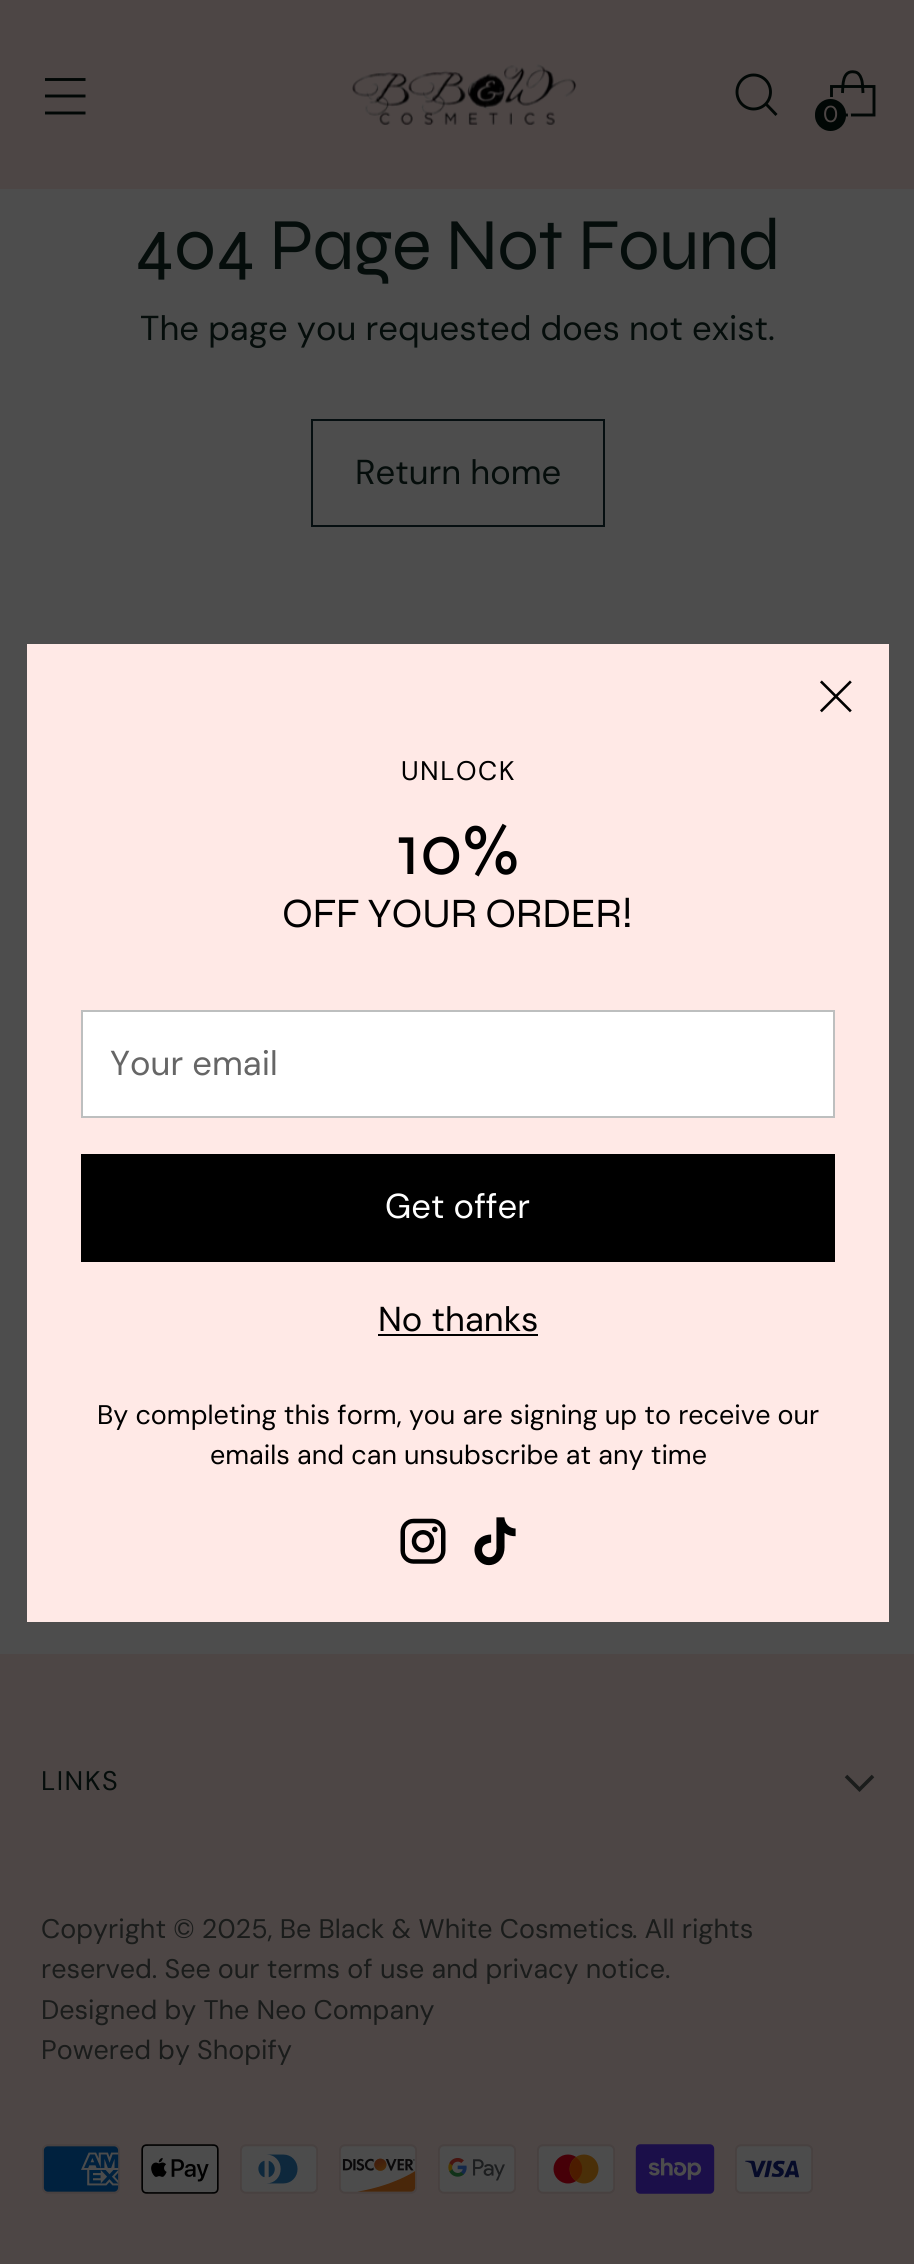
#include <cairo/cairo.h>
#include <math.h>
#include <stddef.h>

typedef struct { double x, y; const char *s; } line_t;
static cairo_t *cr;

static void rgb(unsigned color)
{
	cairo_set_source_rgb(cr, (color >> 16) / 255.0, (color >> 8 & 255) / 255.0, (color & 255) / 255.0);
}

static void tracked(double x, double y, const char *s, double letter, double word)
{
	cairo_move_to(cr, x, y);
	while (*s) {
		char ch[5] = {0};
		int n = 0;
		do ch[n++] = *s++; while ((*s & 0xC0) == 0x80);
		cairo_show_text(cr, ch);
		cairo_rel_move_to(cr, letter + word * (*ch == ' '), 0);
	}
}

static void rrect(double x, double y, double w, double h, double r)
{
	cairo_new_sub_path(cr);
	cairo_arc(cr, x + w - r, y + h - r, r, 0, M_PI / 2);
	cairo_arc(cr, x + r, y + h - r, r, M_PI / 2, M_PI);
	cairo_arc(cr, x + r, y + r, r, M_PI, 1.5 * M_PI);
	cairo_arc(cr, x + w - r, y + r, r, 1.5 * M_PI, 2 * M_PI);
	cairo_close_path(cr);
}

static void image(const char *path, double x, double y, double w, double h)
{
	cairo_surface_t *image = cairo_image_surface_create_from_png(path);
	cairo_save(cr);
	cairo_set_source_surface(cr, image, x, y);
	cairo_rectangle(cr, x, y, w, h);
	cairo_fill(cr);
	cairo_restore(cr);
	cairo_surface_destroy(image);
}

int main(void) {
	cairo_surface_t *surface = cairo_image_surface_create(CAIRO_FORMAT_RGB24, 914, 2264);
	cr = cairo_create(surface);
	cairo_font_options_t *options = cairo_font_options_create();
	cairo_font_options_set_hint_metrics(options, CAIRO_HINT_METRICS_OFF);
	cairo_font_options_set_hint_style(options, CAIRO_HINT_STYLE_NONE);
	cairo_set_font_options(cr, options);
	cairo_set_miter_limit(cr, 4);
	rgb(0x4d4d4d);
	cairo_paint(cr);
	rgb(0x4d4645);
	cairo_rectangle(cr, 0, 0, 914, 189);
	cairo_fill(cr);
	cairo_new_path(cr);
	cairo_move_to(cr, 45, 96);
	cairo_line_to(cr, 85.5, 96);
	cairo_move_to(cr, 45, 79.5);
	cairo_line_to(cr, 85.5, 79.5);
	cairo_move_to(cr, 45, 113);
	cairo_line_to(cr, 85.5, 113);
	rgb(0x010705);
	cairo_set_line_width(cr, 2.9);
	cairo_stroke(cr);
	image("img/1.png", 352, 64, 225, 61);
	cairo_new_path(cr);
	cairo_move_to(cr, 753.5, 109);
	cairo_curve_to(cr, 763, 109, 770.5, 101.5, 770.5, 92);
	cairo_curve_to(cr, 770.5, 82.5, 763, 75, 753.5, 75);
	cairo_curve_to(cr, 744.5, 75, 737, 82.5, 737, 92);
	cairo_curve_to(cr, 737, 101.5, 744.5, 109, 753.5, 109);
	cairo_close_path(cr);
	cairo_set_line_cap(cr, CAIRO_LINE_CAP_ROUND);
	cairo_stroke(cr);
	cairo_new_path(cr);
	cairo_move_to(cr, 766, 104);
	cairo_line_to(cr, 776.5, 115);
	cairo_set_line_cap(cr, CAIRO_LINE_CAP_BUTT);
	cairo_stroke(cr);
	cairo_new_path(cr);
	cairo_move_to(cr, 863, 93);
	cairo_curve_to(cr, 862.5, 88, 863, 82.5, 861, 78);
	cairo_curve_to(cr, 860, 75, 858, 72.5, 855, 72);
	cairo_curve_to(cr, 842, 69.5, 843, 85.5, 842.5, 93);
	cairo_set_line_join(cr, CAIRO_LINE_JOIN_BEVEL);
	cairo_stroke(cr);
	cairo_new_path(cr);
	cairo_move_to(cr, 874, 115);
	cairo_line_to(cr, 874, 86.5);
	cairo_line_to(cr, 831.5, 86.5);
	cairo_line_to(cr, 831.5, 115);
	cairo_close_path(cr);
	cairo_set_line_join(cr, CAIRO_LINE_JOIN_MITER);
	cairo_stroke(cr);
	rrect(813.5, 98.5, 36, 35, 17.5);
	rgb(0x4d4645);
	cairo_set_line_width(cr, 3);
	cairo_stroke(cr);
	rgb(0x010705);
	rrect(815, 99, 31, 32, 15.5);
	cairo_fill(cr);
	cairo_rectangle(cr, 312, 420, 292, 106);
	rgb(0x050e10);
	cairo_set_line_width(cr, 2);
	cairo_stroke(cr);
	rgb(0xffe9e6);
	cairo_rectangle(cr, 27, 644, 862, 978);
	cairo_fill(cr);
	image("img/2.png", 820, 680, 32, 33);
	rgb(0xffffff);
	cairo_rectangle(cr, 82, 1011, 752, 106);
	cairo_fill_preserve(cr);
	rgb(0xbdbfbf);
	cairo_stroke(cr);
	cairo_save(cr);
	cairo_rectangle(cr, 81, 1154, 754, 108);
	cairo_clip(cr);
	rgb(0x000000);
	cairo_new_path(cr);
	cairo_move_to(cr, -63, 1154);
	cairo_line_to(cr, 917, 1154);
	cairo_line_to(cr, 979, 1262);
	cairo_line_to(cr, -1, 1262);
	cairo_close_path(cr);
	cairo_fill(cr);
	cairo_restore(cr);
	rgb(0x000000);
	cairo_rectangle(cr, 378, 1334, 160, 2);
	cairo_fill(cr);
	image("img/3.png", 400, 1518, 46, 46);
	image("img/4.png", 474, 1517, 42, 49);
	rgb(0x4d4645);
	cairo_rectangle(cr, 0, 1654, 914, 610);
	cairo_fill(cr);
	cairo_new_path(cr);
	cairo_move_to(cr, 846, 1776);
	cairo_line_to(cr, 859.5, 1789.5);
	cairo_line_to(cr, 873, 1776);
	rgb(0x1a1c1b);
	cairo_set_line_width(cr, 3.6);
	cairo_stroke(cr);
	image("img/5.png", 42, 2144, 78, 50);
	image("img/6.png", 141, 2144, 78, 50);
	image("img/7.png", 240, 2144, 78, 50);
	image("img/8.png", 339, 2144, 78, 50);
	image("img/9.png", 438, 2144, 78, 50);
	image("img/10.png", 537, 2144, 78, 50);
	image("img/11.png", 635, 2144, 80, 50);
	image("img/12.png", 735, 2144, 78, 50);
	cairo_select_font_face(cr, "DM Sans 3", CAIRO_FONT_SLANT_NORMAL, CAIRO_FONT_WEIGHT_NORMAL);
	cairo_set_font_size(cr, 23);
	rgb(0x4d4645);
	cairo_move_to(cr, 823, 122);
	cairo_show_text(cr, "0");
	cairo_select_font_face(cr, "Syne", CAIRO_FONT_SLANT_NORMAL, CAIRO_FONT_WEIGHT_NORMAL);
	cairo_set_font_size(cr, 73.25);
	rgb(0x050d0b);
	tracked(135, 269, "404 Page Not Found", -0.75, 0);
	cairo_select_font_face(cr, "DM Sans", CAIRO_FONT_SLANT_NORMAL, CAIRO_FONT_WEIGHT_NORMAL);
	cairo_set_font_size(cr, 34.6);
	cairo_move_to(cr, 140, 340);
	cairo_show_text(cr, "The page you requested does not exist.");
	cairo_move_to(cr, 355, 484);
	cairo_show_text(cr, "Return home");
	cairo_select_font_face(cr, "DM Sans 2", CAIRO_FONT_SLANT_NORMAL, CAIRO_FONT_WEIGHT_NORMAL);
	cairo_set_font_size(cr, 26.9);
	rgb(0x000000);
	tracked(401, 780, "UNLOCK", 1.5, 0);
	cairo_select_font_face(cr, "Syne", CAIRO_FONT_SLANT_NORMAL, CAIRO_FONT_WEIGHT_NORMAL);
	cairo_set_font_size(cr, 73.25);
	tracked(397, 874, "10%", -0.75, 0);
	cairo_set_font_size(cr, 41.75);
	tracked(282, 927, "OFF YOUR ORDER!", -0.4, 0);
	cairo_select_font_face(cr, "DM Sans", CAIRO_FONT_SLANT_NORMAL, CAIRO_FONT_WEIGHT_NORMAL);
	cairo_set_font_size(cr, 34.6);
	rgb(0x666666);
	cairo_move_to(cr, 110, 1075);
	cairo_show_text(cr, "Your email");
	rgb(0xffffff);
	cairo_move_to(cr, 385, 1218);
	cairo_show_text(cr, "Get offer");
	rgb(0x000000);
	cairo_move_to(cr, 378, 1331);
	cairo_show_text(cr, "No thanks");
	cairo_select_font_face(cr, "DM Sans 2", CAIRO_FONT_SLANT_NORMAL, CAIRO_FONT_WEIGHT_NORMAL);
	cairo_set_font_size(cr, 26.9);
	cairo_move_to(cr, 97, 1424);
	cairo_show_text(cr, "By completing this form, you are signing up to receive our");
	cairo_move_to(cr, 210, 1464);
	cairo_show_text(cr, "emails and can unsubscribe at any time");
	rgb(0x050d0b);
	tracked(41, 1790, "LINKS", 1.5, 0);
	rgb(0x1a1c1b);
	{
		static const line_t items[] = {
			{41, 1938, "Copyright © 2025, Be Black & White Cosmetics"},
			{632, 1938, ". All rights"},
			{41, 1978, "reserved. See our terms of use and privacy notice."},
			{41, 2019, "Designed by The Neo Company"},
			{41, 2059, "Powered by Shopify"},
		};
		for (size_t i = 0; i < sizeof items / sizeof *items; i++) {
			cairo_move_to(cr, items[i].x, items[i].y);
			cairo_show_text(cr, items[i].s);
		}
	}
	cairo_surface_write_to_png(surface, "page.png");
	cairo_font_options_destroy(options);
	cairo_destroy(cr);
	cairo_surface_destroy(surface);
	return 0;
}
